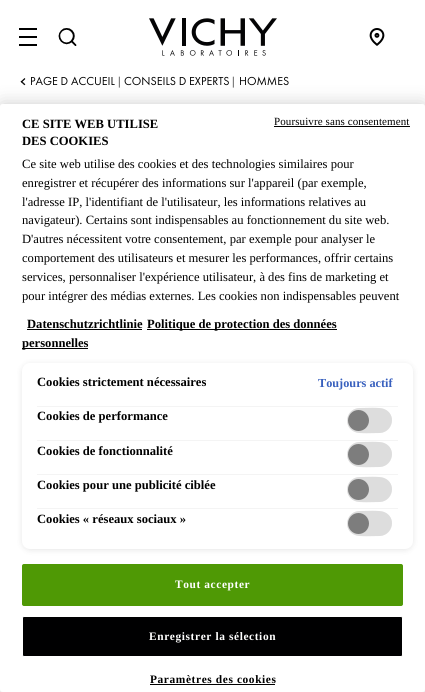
#include <cairo/cairo.h>
#include <math.h>
#include <stddef.h>

typedef struct { double x, y; const char *s; } line_t;
typedef struct { double x, y, w, h; unsigned color; } box_t;
static cairo_t *cr;

static void rgb(unsigned color)
{
	cairo_set_source_rgb(cr, (color >> 16) / 255.0, (color >> 8 & 255) / 255.0, (color & 255) / 255.0);
}

static void tracked(double x, double y, const char *s, double letter, double word)
{
	cairo_move_to(cr, x, y);
	while (*s) {
		char ch[5] = {0};
		int n = 0;
		do ch[n++] = *s++; while ((*s & 0xC0) == 0x80);
		cairo_show_text(cr, ch);
		cairo_rel_move_to(cr, letter + word * (*ch == ' '), 0);
	}
}

static void rrect(double x, double y, double w, double h, double r)
{
	cairo_new_sub_path(cr);
	cairo_arc(cr, x + w - r, y + h - r, r, 0, M_PI / 2);
	cairo_arc(cr, x + r, y + h - r, r, M_PI / 2, M_PI);
	cairo_arc(cr, x + r, y + r, r, M_PI, 1.5 * M_PI);
	cairo_arc(cr, x + w - r, y + r, r, 1.5 * M_PI, 2 * M_PI);
	cairo_close_path(cr);
}

static void soft_shadow(double x, double y, double w, double h, double r, double blur, double alpha)
{
	cairo_push_group_with_content(cr, CAIRO_CONTENT_ALPHA);
	cairo_set_operator(cr, CAIRO_OPERATOR_SOURCE);
	for (int i = 15; i >= -15 && fmin(w, h) + blur * i / 3 > 0; i -= 2) {
		double e = blur * i / 6;
		cairo_set_source_rgba(cr, 0, 0, 0, alpha * erfc((i - 1) / 8.5) / 2);
		rrect(x - e, y - e, w + 2 * e, h + 2 * e, fmax(0, fmin(r + e + blur * .6, fmin(w, h) / 2 + e)));
		cairo_fill(cr);
	}
	cairo_pattern_t *soft = cairo_pop_group(cr);
	cairo_mask(cr, soft);
	cairo_pattern_destroy(soft);
}

static void image(const char *path, double x, double y, double w, double h)
{
	cairo_surface_t *image = cairo_image_surface_create_from_png(path);
	cairo_save(cr);
	cairo_set_source_surface(cr, image, x, y);
	cairo_rectangle(cr, x, y, w, h);
	cairo_fill(cr);
	cairo_restore(cr);
	cairo_surface_destroy(image);
}

int main(void) {
	cairo_surface_t *surface = cairo_image_surface_create(CAIRO_FORMAT_RGB24, 425, 692);
	cr = cairo_create(surface);
	cairo_font_options_t *options = cairo_font_options_create();
	cairo_font_options_set_hint_metrics(options, CAIRO_HINT_METRICS_OFF);
	cairo_font_options_set_hint_style(options, CAIRO_HINT_STYLE_NONE);
	cairo_set_font_options(cr, options);
	cairo_set_miter_limit(cr, 4);
	rgb(0xffffff);
	cairo_paint(cr);
	image("img/1.png", 19, 28, 18, 18);
	image("img/2.png", 58, 28, 19, 18);
	image("img/3.png", 149, 18, 128, 38);
	image("img/4.png", 369, 28, 16, 18);
	image("img/5.png", 20, 78, 6, 8);
	rgb(0x000000);
	soft_shadow(0, 104, 425, 588, 2.5, 9, 0.2);
	rgb(0xffffff);
	rrect(0, 104, 425, 588, 2.5);
	cairo_fill(cr);
	{
		static const box_t items[] = {
			{274, 126, 136, 1, 0x000000},
			{27, 329, 115, 1, 0x000000},
			{147, 329, 190, 1, 0x000000},
			{22, 348, 66, 1, 0x000000},
		};
		for (size_t i = 0; i < sizeof items / sizeof *items; i++) {
			rgb(items[i].color);
			cairo_rectangle(cr, items[i].x, items[i].y, items[i].w, items[i].h);
			cairo_fill(cr);
		}
	}
	rgb(0x000000);
	soft_shadow(22, 364, 391, 186, 8, 3, 0.1);
	rgb(0xffffff);
	rrect(22, 363, 391, 186, 8);
	cairo_fill(cr);
	rgb(0xf4f4f4);
	cairo_rectangle(cr, 37, 406, 361, 1);
	cairo_fill(cr);
	cairo_rectangle(cr, 37, 440, 361, 1);
	cairo_fill(cr);
	rgb(0xf2f1f1);
	rrect(347, 408, 45, 25, 12.5);
	cairo_fill(cr);
	rgb(0xdddddd);
	cairo_new_path(cr);
	cairo_move_to(cr, 360, 408);
	cairo_curve_to(cr, 366, 408, 379, 407, 384, 409);
	cairo_curve_to(cr, 397, 414, 393, 432, 380, 433);
	cairo_curve_to(cr, 374, 433, 359, 434, 355, 432);
	cairo_curve_to(cr, 342, 427, 346, 408, 360, 408);
	cairo_close_path(cr);
	cairo_fill(cr);
	rgb(0x7d7d7d);
	cairo_arc(cr, 358.5, 420.5, 10.5, 0, 2 * M_PI);
	cairo_fill(cr);
	rgb(0xf4f4f4);
	cairo_rectangle(cr, 37, 474, 361, 1);
	cairo_fill(cr);
	rgb(0xf2f1f1);
	rrect(347, 442, 45, 25, 12.5);
	cairo_fill(cr);
	rgb(0xdddddd);
	cairo_new_path(cr);
	cairo_move_to(cr, 360, 442);
	cairo_curve_to(cr, 366, 442, 379, 441, 384, 443);
	cairo_curve_to(cr, 397, 448, 393, 466, 380, 467);
	cairo_curve_to(cr, 374, 467, 359, 468, 355, 466);
	cairo_curve_to(cr, 342, 461, 346, 442, 360, 442);
	cairo_close_path(cr);
	cairo_fill(cr);
	rgb(0x7d7d7d);
	cairo_arc(cr, 358.5, 454.5, 10.5, 0, 2 * M_PI);
	cairo_fill(cr);
	rgb(0xf4f4f4);
	cairo_rectangle(cr, 37, 508, 361, 1);
	cairo_fill(cr);
	rgb(0xf2f1f1);
	rrect(347, 477, 45, 25, 12.5);
	cairo_fill(cr);
	rgb(0xdddddd);
	cairo_new_path(cr);
	cairo_move_to(cr, 360, 477);
	cairo_curve_to(cr, 366, 477, 379, 476, 384, 478);
	cairo_curve_to(cr, 397, 483, 393, 501, 380, 502);
	cairo_curve_to(cr, 374, 502, 359, 503, 355, 501);
	cairo_curve_to(cr, 342, 496, 346, 477, 360, 477);
	cairo_close_path(cr);
	cairo_fill(cr);
	rgb(0x7d7d7d);
	cairo_arc(cr, 358.5, 489.5, 10.5, 0, 2 * M_PI);
	cairo_fill(cr);
	rgb(0xf2f1f1);
	rrect(347, 511, 45, 25, 12.5);
	cairo_fill(cr);
	rgb(0xdddddd);
	cairo_new_path(cr);
	cairo_move_to(cr, 360, 511);
	cairo_curve_to(cr, 366, 511, 379, 510, 384, 512);
	cairo_curve_to(cr, 397, 517, 393, 535, 380, 536);
	cairo_curve_to(cr, 374, 536, 359, 537, 355, 535);
	cairo_curve_to(cr, 342, 530, 346, 511, 360, 511);
	cairo_close_path(cr);
	cairo_fill(cr);
	rgb(0x7d7d7d);
	cairo_arc(cr, 358.5, 523.5, 10.5, 0, 2 * M_PI);
	cairo_fill(cr);
	rgb(0x4f9905);
	rrect(22.5, 564.5, 380, 41, 1.5);
	cairo_fill_preserve(cr);
	cairo_set_line_width(cr, 1);
	cairo_stroke(cr);
	rgb(0x000001);
	rrect(22.5, 616.5, 380, 40, 1.5);
	cairo_fill_preserve(cr);
	rgb(0xffffff);
	cairo_stroke(cr);
	rgb(0x000000);
	cairo_rectangle(cr, 150, 684, 125, 1);
	cairo_fill(cr);
	cairo_select_font_face(cr, "Futura PT", CAIRO_FONT_SLANT_NORMAL, CAIRO_FONT_WEIGHT_NORMAL);
	cairo_set_font_size(cr, 12);
	cairo_move_to(cr, 30, 85);
	cairo_show_text(cr, "PAGE D ACCUEIL");
	cairo_select_font_face(cr, "Liberation Serif", CAIRO_FONT_SLANT_NORMAL, CAIRO_FONT_WEIGHT_NORMAL);
	cairo_move_to(cr, 118, 85);
	cairo_show_text(cr, "|");
	cairo_select_font_face(cr, "Futura PT", CAIRO_FONT_SLANT_NORMAL, CAIRO_FONT_WEIGHT_NORMAL);
	cairo_move_to(cr, 124, 85);
	cairo_show_text(cr, "CONSEILS D EXPERTS");
	cairo_select_font_face(cr, "Liberation Serif", CAIRO_FONT_SLANT_NORMAL, CAIRO_FONT_WEIGHT_NORMAL);
	cairo_move_to(cr, 232, 85);
	cairo_show_text(cr, "|");
	cairo_select_font_face(cr, "Futura PT", CAIRO_FONT_SLANT_NORMAL, CAIRO_FONT_WEIGHT_NORMAL);
	cairo_move_to(cr, 239, 85);
	cairo_show_text(cr, "HOMMES");
	cairo_select_font_face(cr, "Liberation Serif", CAIRO_FONT_SLANT_NORMAL, CAIRO_FONT_WEIGHT_NORMAL);
	cairo_set_font_size(cr, 11);
	tracked(274, 125, "Poursuivre sans consentement", 0.1, 0);
	cairo_select_font_face(cr, "Liberation Serif", CAIRO_FONT_SLANT_NORMAL, CAIRO_FONT_WEIGHT_BOLD);
	cairo_set_font_size(cr, 12.6);
	cairo_move_to(cr, 22, 128);
	cairo_show_text(cr, "CE SITE WEB UTILISE");
	cairo_move_to(cr, 22, 145);
	cairo_show_text(cr, "DES COOKIES");
	cairo_select_font_face(cr, "Liberation Serif", CAIRO_FONT_SLANT_NORMAL, CAIRO_FONT_WEIGHT_NORMAL);
	{
		static const line_t items[] = {
			{22, 168, "Ce site web utilise des cookies et des technologies similaires pour"},
			{22, 187, "enregistrer et récupérer des informations sur l'appareil (par exemple,"},
			{22, 206, "l'adresse IP, l'identifiant de l'utilisateur, les informations relatives au"},
			{22, 224, "navigateur). Certains sont indispensables au fonctionnement du site web."},
			{22, 243, "D'autres nécessitent votre consentement, par exemple pour analyser le"},
			{22, 262, "comportement des utilisateurs et mesurer les performances, offrir certains"},
			{22, 281, "services, personnaliser l'expérience utilisateur, à des fins de marketing et"},
			{22, 300, "pour intégrer des médias externes. Les cookies non indispensables peuvent"},
		};
		for (size_t i = 0; i < sizeof items / sizeof *items; i++) {
			cairo_move_to(cr, items[i].x, items[i].y);
			cairo_show_text(cr, items[i].s);
		}
	}
	cairo_select_font_face(cr, "Liberation Serif", CAIRO_FONT_SLANT_NORMAL, CAIRO_FONT_WEIGHT_BOLD);
	{
		static const line_t items[] = {
			{27, 328, "Datenschutzrichtlinie"},
			{147, 328, "Politique de protection des données"},
			{22, 347, "personnelles"},
			{37, 386, "Cookies strictement nécessaires"},
		};
		for (size_t i = 0; i < sizeof items / sizeof *items; i++) {
			cairo_move_to(cr, items[i].x, items[i].y);
			cairo_show_text(cr, items[i].s);
		}
	}
	cairo_set_font_size(cr, 12.25);
	rgb(0x3860be);
	cairo_move_to(cr, 318, 387);
	cairo_show_text(cr, "Toujours actif");
	cairo_set_font_size(cr, 12.6);
	rgb(0x000000);
	{
		static const line_t items[] = {
			{37, 420, "Cookies de performance"},
			{37, 455, "Cookies de fonctionnalité"},
			{37, 489, "Cookies pour une publicité ciblée"},
			{37, 523, "Cookies « réseaux sociaux »"},
		};
		for (size_t i = 0; i < sizeof items / sizeof *items; i++) {
			cairo_move_to(cr, items[i].x, items[i].y);
			cairo_show_text(cr, items[i].s);
		}
	}
	cairo_set_font_size(cr, 11.4);
	rgb(0xffffff);
	tracked(175, 588, "Tout accepter", 0.6, 0);
	tracked(149, 640, "Enregistrer la sélection", 0.6, 0);
	rgb(0x000000);
	tracked(150, 683, "Paramètres des cookies", 0.6, 0);
	cairo_surface_write_to_png(surface, "page.png");
	cairo_font_options_destroy(options);
	cairo_destroy(cr);
	cairo_surface_destroy(surface);
	return 0;
}
